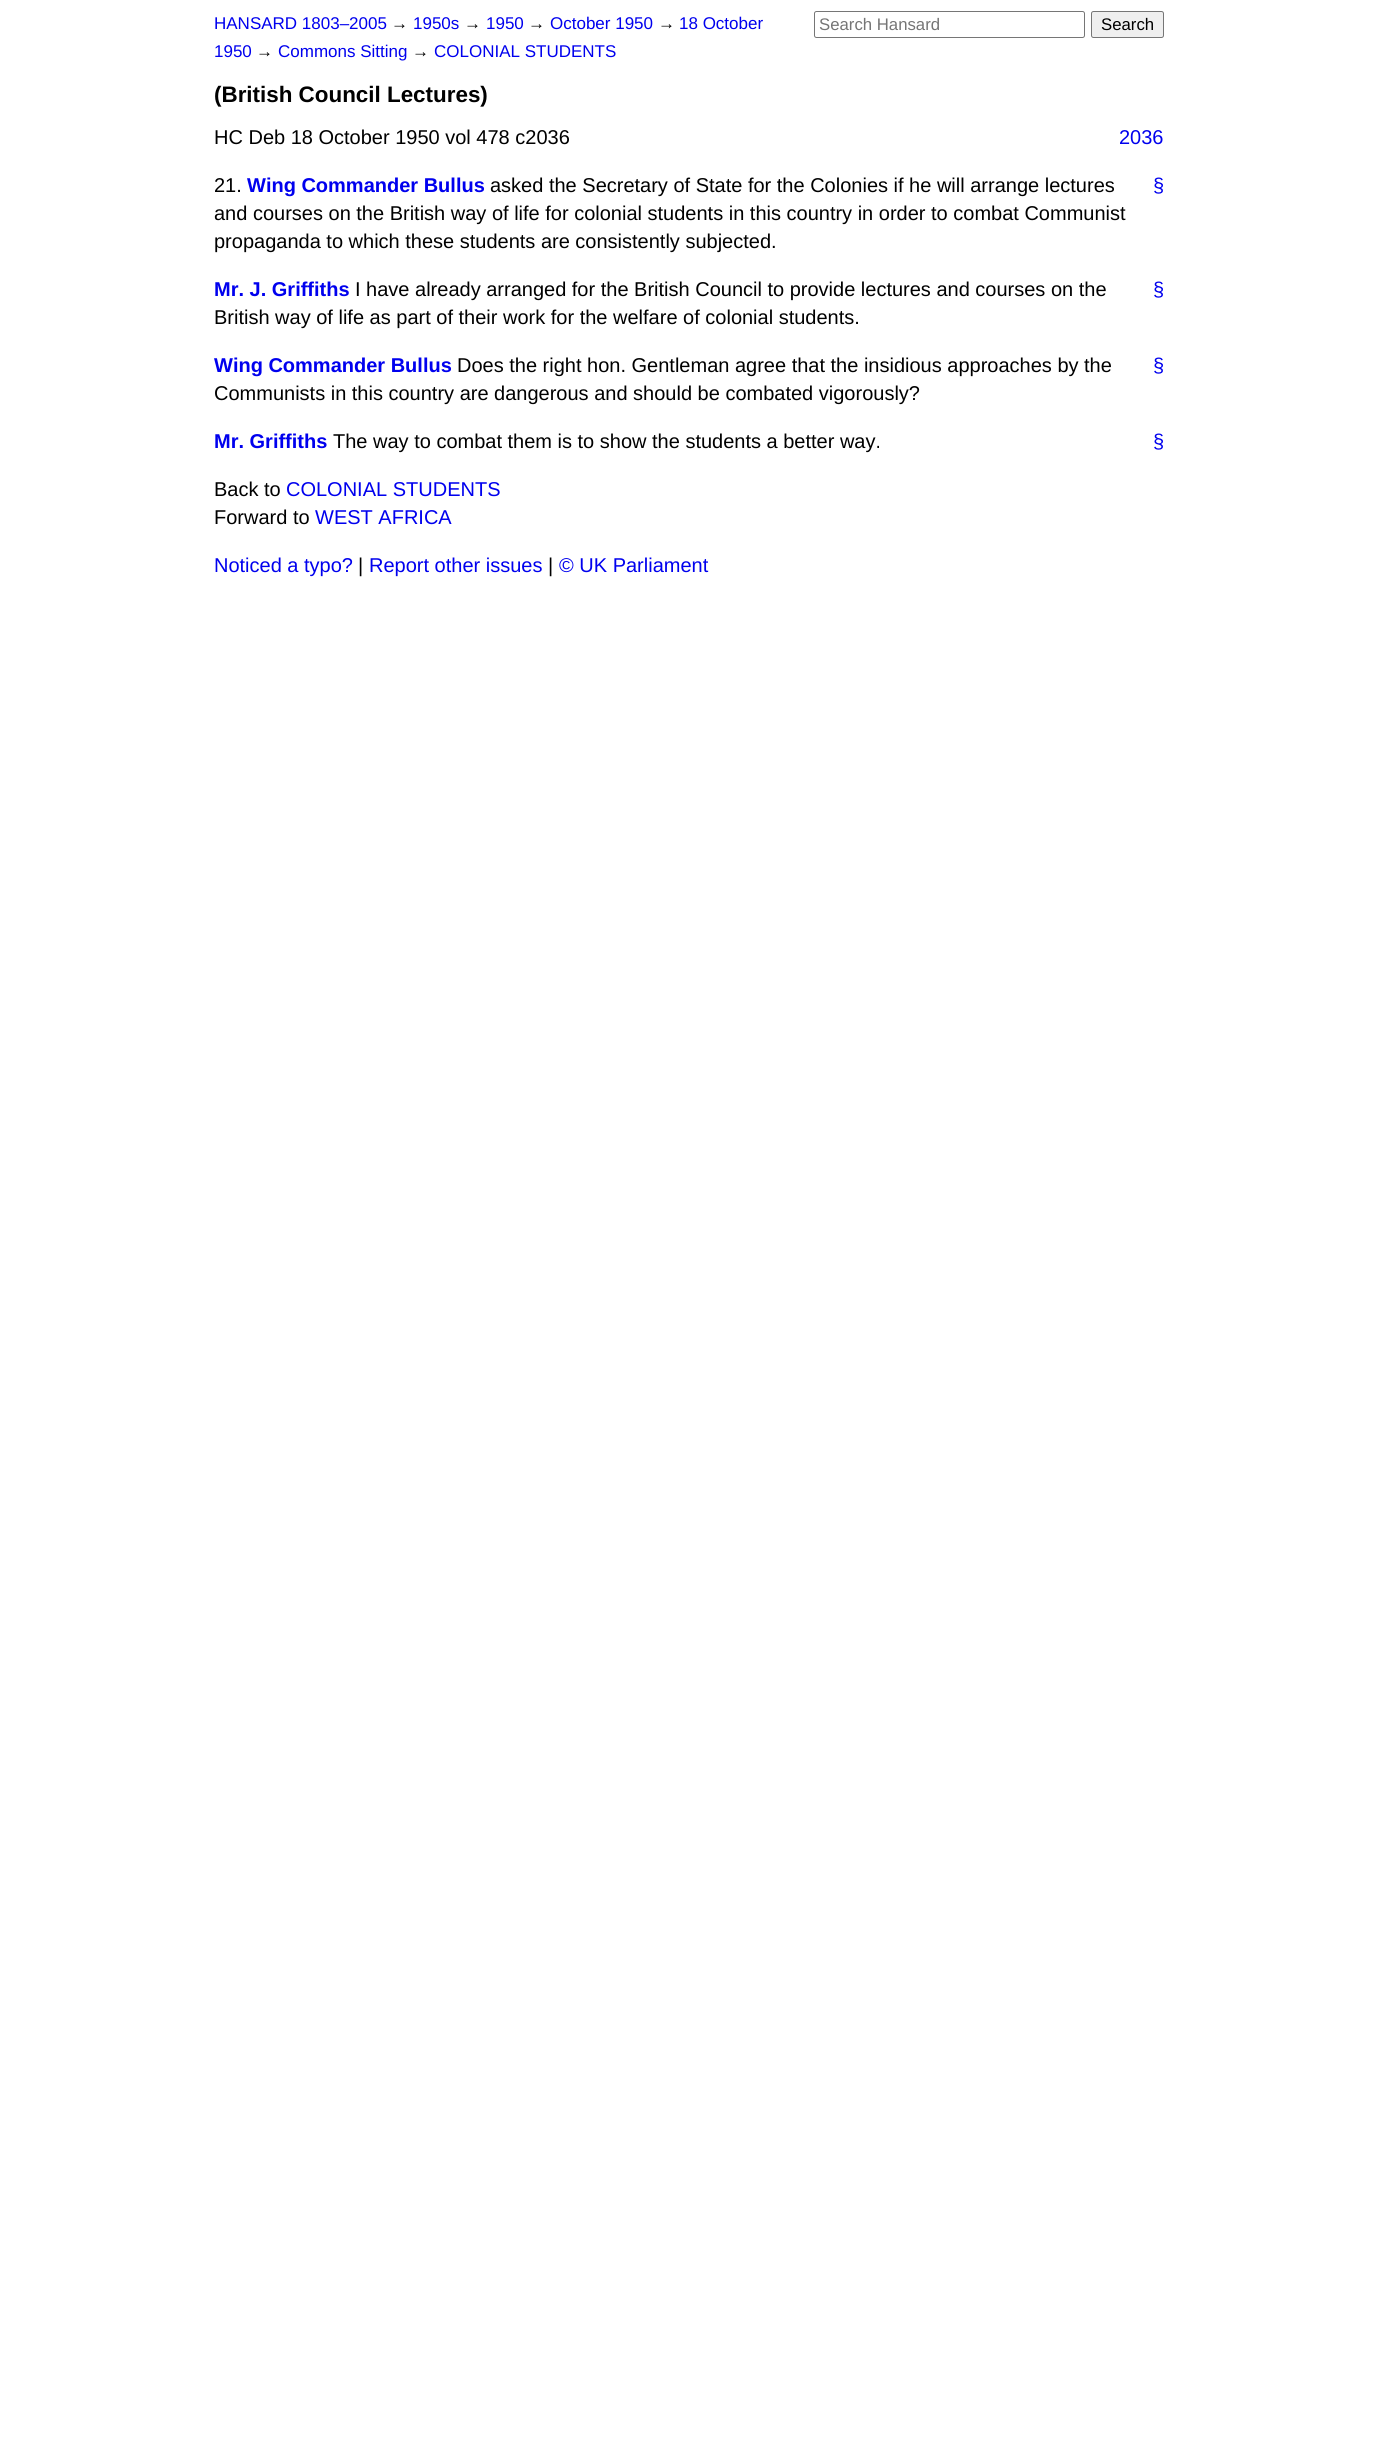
#include <cairo/cairo.h>
#include <math.h>
#include <stddef.h>

static cairo_t *cr;

static void rgb(unsigned color)
{
	cairo_set_source_rgb(cr, (color >> 16) / 255.0, (color >> 8 & 255) / 255.0, (color & 255) / 255.0);
}

static void rrect(double x, double y, double w, double h, double r)
{
	cairo_new_sub_path(cr);
	cairo_arc(cr, x + w - r, y + h - r, r, 0, M_PI / 2);
	cairo_arc(cr, x + r, y + h - r, r, M_PI / 2, M_PI);
	cairo_arc(cr, x + r, y + r, r, M_PI, 1.5 * M_PI);
	cairo_arc(cr, x + w - r, y + r, r, 1.5 * M_PI, 2 * M_PI);
	cairo_close_path(cr);
}

int main(void) {
	cairo_surface_t *surface = cairo_image_surface_create(CAIRO_FORMAT_RGB24, 1377, 2443);
	cr = cairo_create(surface);
	cairo_font_options_t *options = cairo_font_options_create();
	cairo_font_options_set_hint_metrics(options, CAIRO_HINT_METRICS_OFF);
	cairo_font_options_set_hint_style(options, CAIRO_HINT_STYLE_NONE);
	cairo_set_font_options(cr, options);
	cairo_set_miter_limit(cr, 4);
	rgb(0xffffff);
	cairo_paint(cr);
	rrect(814.5, 11.5, 270, 26, 2);
	rgb(0x767676);
	cairo_set_line_width(cr, 1);
	cairo_stroke(cr);
	rgb(0xefefef);
	rrect(1091.5, 11.5, 72, 26, 2);
	cairo_fill_preserve(cr);
	rgb(0x767676);
	cairo_stroke(cr);
	cairo_select_font_face(cr, "Liberation Sans", CAIRO_FONT_SLANT_NORMAL, CAIRO_FONT_WEIGHT_NORMAL);
	cairo_set_font_size(cr, 17);
	rgb(0x0000ee);
	cairo_move_to(cr, 214, 29);
	cairo_show_text(cr, "HANSARD 1803–2005");
	rgb(0x000000);
	cairo_move_to(cr, 391, 29);
	cairo_show_text(cr, "→");
	rgb(0x0000ee);
	cairo_move_to(cr, 413, 29);
	cairo_show_text(cr, "1950s");
	rgb(0x000000);
	cairo_move_to(cr, 464, 29);
	cairo_show_text(cr, "→");
	rgb(0x0000ee);
	cairo_move_to(cr, 486, 29);
	cairo_show_text(cr, "1950");
	rgb(0x000000);
	cairo_move_to(cr, 528, 29);
	cairo_show_text(cr, "→");
	rgb(0x0000ee);
	cairo_move_to(cr, 550, 29);
	cairo_show_text(cr, "October 1950");
	rgb(0x000000);
	cairo_move_to(cr, 658, 29);
	cairo_show_text(cr, "→");
	rgb(0x0000ee);
	cairo_move_to(cr, 679, 29);
	cairo_show_text(cr, "18 October");
	cairo_move_to(cr, 214, 57);
	cairo_show_text(cr, "1950");
	rgb(0x000000);
	cairo_move_to(cr, 256, 57);
	cairo_show_text(cr, "→");
	rgb(0x0000ee);
	cairo_move_to(cr, 278, 57);
	cairo_show_text(cr, "Commons Sitting");
	rgb(0x000000);
	cairo_move_to(cr, 412, 57);
	cairo_show_text(cr, "→");
	rgb(0x0000ee);
	cairo_move_to(cr, 434, 57);
	cairo_show_text(cr, "COLONIAL STUDENTS");
	cairo_set_font_size(cr, 16.75);
	rgb(0x757575);
	cairo_move_to(cr, 819, 30);
	cairo_show_text(cr, "Search Hansard");
	rgb(0x000000);
	cairo_move_to(cr, 1101, 30);
	cairo_show_text(cr, "Search");
	cairo_select_font_face(cr, "Liberation Sans", CAIRO_FONT_SLANT_NORMAL, CAIRO_FONT_WEIGHT_BOLD);
	cairo_set_font_size(cr, 22.4);
	cairo_move_to(cr, 214, 102);
	cairo_show_text(cr, "(British Council Lectures)");
	cairo_select_font_face(cr, "Liberation Sans", CAIRO_FONT_SLANT_NORMAL, CAIRO_FONT_WEIGHT_NORMAL);
	cairo_set_font_size(cr, 20);
	cairo_move_to(cr, 214, 144);
	cairo_show_text(cr, "HC Deb 18 October 1950 vol 478 c2036");
	rgb(0x0000ee);
	cairo_move_to(cr, 1119, 144);
	cairo_show_text(cr, "2036");
	rgb(0x000000);
	cairo_move_to(cr, 214, 192);
	cairo_show_text(cr, "21.");
	cairo_select_font_face(cr, "Liberation Sans", CAIRO_FONT_SLANT_NORMAL, CAIRO_FONT_WEIGHT_BOLD);
	rgb(0x0000ee);
	cairo_move_to(cr, 247, 192);
	cairo_show_text(cr, "Wing Commander Bullus");
	cairo_select_font_face(cr, "Liberation Sans", CAIRO_FONT_SLANT_NORMAL, CAIRO_FONT_WEIGHT_NORMAL);
	rgb(0x000000);
	cairo_move_to(cr, 490, 192);
	cairo_show_text(cr, "asked the Secretary of State for the Colonies if he will arrange lectures");
	rgb(0x0000ee);
	cairo_move_to(cr, 1153, 192);
	cairo_show_text(cr, "§");
	rgb(0x000000);
	cairo_move_to(cr, 214, 220);
	cairo_show_text(cr, "and courses on the British way of life for colonial students in this country in order to combat Communist");
	cairo_move_to(cr, 214, 248);
	cairo_show_text(cr, "propaganda to which these students are consistently subjected.");
	cairo_select_font_face(cr, "Liberation Sans", CAIRO_FONT_SLANT_NORMAL, CAIRO_FONT_WEIGHT_BOLD);
	rgb(0x0000ee);
	cairo_move_to(cr, 214, 296);
	cairo_show_text(cr, "Mr. J. Griffiths");
	cairo_select_font_face(cr, "Liberation Sans", CAIRO_FONT_SLANT_NORMAL, CAIRO_FONT_WEIGHT_NORMAL);
	rgb(0x000000);
	cairo_move_to(cr, 355, 296);
	cairo_show_text(cr, "I have already arranged for the British Council to provide lectures and courses on the");
	rgb(0x0000ee);
	cairo_move_to(cr, 1153, 296);
	cairo_show_text(cr, "§");
	rgb(0x000000);
	cairo_move_to(cr, 214, 324);
	cairo_show_text(cr, "British way of life as part of their work for the welfare of colonial students.");
	cairo_select_font_face(cr, "Liberation Sans", CAIRO_FONT_SLANT_NORMAL, CAIRO_FONT_WEIGHT_BOLD);
	rgb(0x0000ee);
	cairo_move_to(cr, 214, 372);
	cairo_show_text(cr, "Wing Commander Bullus");
	cairo_select_font_face(cr, "Liberation Sans", CAIRO_FONT_SLANT_NORMAL, CAIRO_FONT_WEIGHT_NORMAL);
	rgb(0x000000);
	cairo_move_to(cr, 457, 372);
	cairo_show_text(cr, "Does the right hon. Gentleman agree that the insidious approaches by the");
	rgb(0x0000ee);
	cairo_move_to(cr, 1153, 372);
	cairo_show_text(cr, "§");
	rgb(0x000000);
	cairo_move_to(cr, 214, 400);
	cairo_show_text(cr, "Communists in this country are dangerous and should be combated vigorously?");
	cairo_select_font_face(cr, "Liberation Sans", CAIRO_FONT_SLANT_NORMAL, CAIRO_FONT_WEIGHT_BOLD);
	rgb(0x0000ee);
	cairo_move_to(cr, 214, 448);
	cairo_show_text(cr, "Mr. Griffiths");
	cairo_select_font_face(cr, "Liberation Sans", CAIRO_FONT_SLANT_NORMAL, CAIRO_FONT_WEIGHT_NORMAL);
	rgb(0x000000);
	cairo_move_to(cr, 333, 448);
	cairo_show_text(cr, "The way to combat them is to show the students a better way.");
	rgb(0x0000ee);
	cairo_move_to(cr, 1153, 448);
	cairo_show_text(cr, "§");
	rgb(0x000000);
	cairo_move_to(cr, 214, 496);
	cairo_show_text(cr, "Back to");
	rgb(0x0000ee);
	cairo_move_to(cr, 286, 496);
	cairo_show_text(cr, "COLONIAL STUDENTS");
	rgb(0x000000);
	cairo_move_to(cr, 214, 524);
	cairo_show_text(cr, "Forward to");
	rgb(0x0000ee);
	cairo_move_to(cr, 315, 524);
	cairo_show_text(cr, "WEST AFRICA");
	cairo_move_to(cr, 214, 572);
	cairo_show_text(cr, "Noticed a typo?");
	rgb(0x000000);
	cairo_move_to(cr, 358, 572);
	cairo_show_text(cr, "|");
	rgb(0x0000ee);
	cairo_move_to(cr, 369, 572);
	cairo_show_text(cr, "Report other issues");
	rgb(0x000000);
	cairo_move_to(cr, 548, 572);
	cairo_show_text(cr, "|");
	rgb(0x0000ee);
	cairo_move_to(cr, 559, 572);
	cairo_show_text(cr, "© UK Parliament");
	cairo_surface_write_to_png(surface, "page.png");
	cairo_font_options_destroy(options);
	cairo_destroy(cr);
	cairo_surface_destroy(surface);
	return 0;
}
